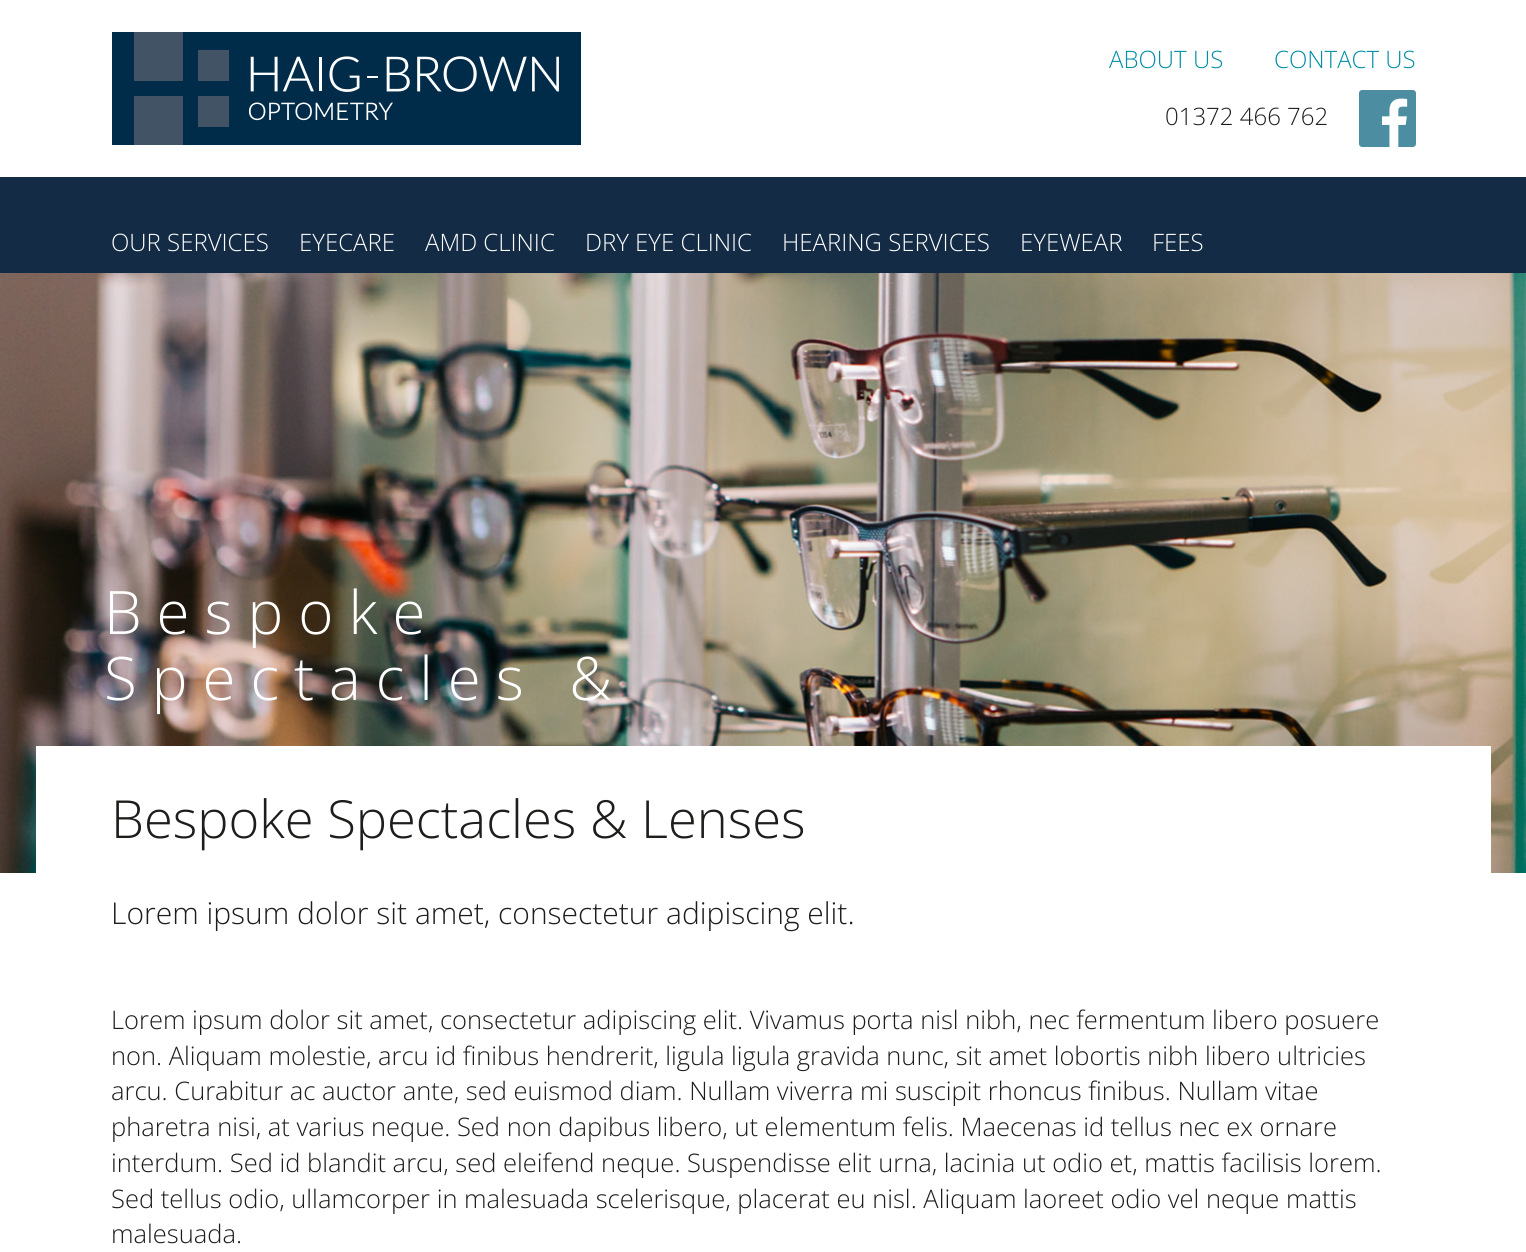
#include <cairo/cairo.h>
#include <math.h>
#include <stddef.h>

typedef struct { double x, y; const char *s; } line_t;
static cairo_t *cr;

static void rgb(unsigned color)
{
	cairo_set_source_rgb(cr, (color >> 16) / 255.0, (color >> 8 & 255) / 255.0, (color & 255) / 255.0);
}

static void tracked(double x, double y, const char *s, double letter, double word)
{
	cairo_move_to(cr, x, y);
	while (*s) {
		char ch[5] = {0};
		int n = 0;
		do ch[n++] = *s++; while ((*s & 0xC0) == 0x80);
		cairo_show_text(cr, ch);
		cairo_rel_move_to(cr, letter + word * (*ch == ' '), 0);
	}
}

static void image(const char *path, double x, double y, double w, double h)
{
	cairo_surface_t *image = cairo_image_surface_create_from_png(path);
	cairo_save(cr);
	cairo_set_source_surface(cr, image, x, y);
	cairo_rectangle(cr, x, y, w, h);
	cairo_fill(cr);
	cairo_restore(cr);
	cairo_surface_destroy(image);
}

int main(void) {
	cairo_surface_t *surface = cairo_image_surface_create(CAIRO_FORMAT_RGB24, 1526, 1252);
	cr = cairo_create(surface);
	cairo_font_options_t *options = cairo_font_options_create();
	cairo_font_options_set_hint_metrics(options, CAIRO_HINT_METRICS_OFF);
	cairo_font_options_set_hint_style(options, CAIRO_HINT_STYLE_NONE);
	cairo_set_font_options(cr, options);
	cairo_set_miter_limit(cr, 4);
	rgb(0xffffff);
	cairo_paint(cr);
	image("img/1.png", 112, 32, 469, 113);
	image("img/2.png", 1359, 90, 57, 57);
	rgb(0x132b45);
	cairo_rectangle(cr, 0, 177, 1526, 96);
	cairo_fill(cr);
	image("img/3.png", 0, 273, 1526, 600);
	rgb(0xffffff);
	cairo_rectangle(cr, 36, 746, 1455, 127);
	cairo_fill(cr);
	cairo_select_font_face(cr, "Open Sans Light", CAIRO_FONT_SLANT_NORMAL, CAIRO_FONT_WEIGHT_NORMAL);
	cairo_set_font_size(cr, 24);
	rgb(0x008fa6);
	cairo_move_to(cr, 1109, 68);
	cairo_show_text(cr, "ABOUT US");
	cairo_move_to(cr, 1274, 68);
	cairo_show_text(cr, "CONTACT US");
	rgb(0x1d1d1b);
	cairo_move_to(cr, 1165, 125);
	cairo_show_text(cr, "01372 466 762");
	rgb(0xffffff);
	{
		static const line_t items[] = {
			{111, 251, "OUR SERVICES"},
			{299, 251, "EYECARE"},
			{425, 251, "AMD CLINIC"},
			{585, 251, "DRY EYE CLINIC"},
			{782, 251, "HEARING SERVICES"},
			{1020, 251, "EYEWEAR"},
			{1152, 251, "FEES"},
		};
		for (size_t i = 0; i < sizeof items / sizeof *items; i++) {
			cairo_move_to(cr, items[i].x, items[i].y);
			cairo_show_text(cr, items[i].s);
		}
	}
	cairo_set_font_size(cr, 60);
	tracked(104, 634, "Bespoke", 15, 0);
	tracked(104, 700, "Spectacles &", 15, 0);
	cairo_set_font_size(cr, 52.5);
	rgb(0x1d1d1b);
	cairo_move_to(cr, 111, 838);
	cairo_show_text(cr, "Bespoke Spectacles & Lenses");
	cairo_set_font_size(cr, 30);
	cairo_move_to(cr, 111, 924);
	cairo_show_text(cr, "Lorem ipsum dolor sit amet, consectetur adipiscing elit.");
	cairo_set_font_size(cr, 25.5);
	{
		static const line_t items[] = {
			{111, 1029, "Lorem ipsum dolor sit amet, consectetur adipiscing elit. Vivamus porta nisl nibh, nec fermentum libero posuere"},
			{111, 1065, "non. Aliquam molestie, arcu id finibus hendrerit, ligula ligula gravida nunc, sit amet lobortis nibh libero ultricies"},
			{111, 1100, "arcu. Curabitur ac auctor ante, sed euismod diam. Nullam viverra mi suscipit rhoncus finibus. Nullam vitae"},
			{111, 1136, "pharetra nisi, at varius neque. Sed non dapibus libero, ut elementum felis. Maecenas id tellus nec ex ornare"},
			{111, 1172, "interdum. Sed id blandit arcu, sed eleifend neque. Suspendisse elit urna, lacinia ut odio et, mattis facilisis lorem."},
			{111, 1208, "Sed tellus odio, ullamcorper in malesuada scelerisque, placerat eu nisl. Aliquam laoreet odio vel neque mattis"},
			{111, 1243, "malesuada."},
		};
		for (size_t i = 0; i < sizeof items / sizeof *items; i++) {
			cairo_move_to(cr, items[i].x, items[i].y);
			cairo_show_text(cr, items[i].s);
		}
	}
	cairo_surface_write_to_png(surface, "page.png");
	cairo_font_options_destroy(options);
	cairo_destroy(cr);
	cairo_surface_destroy(surface);
	return 0;
}
